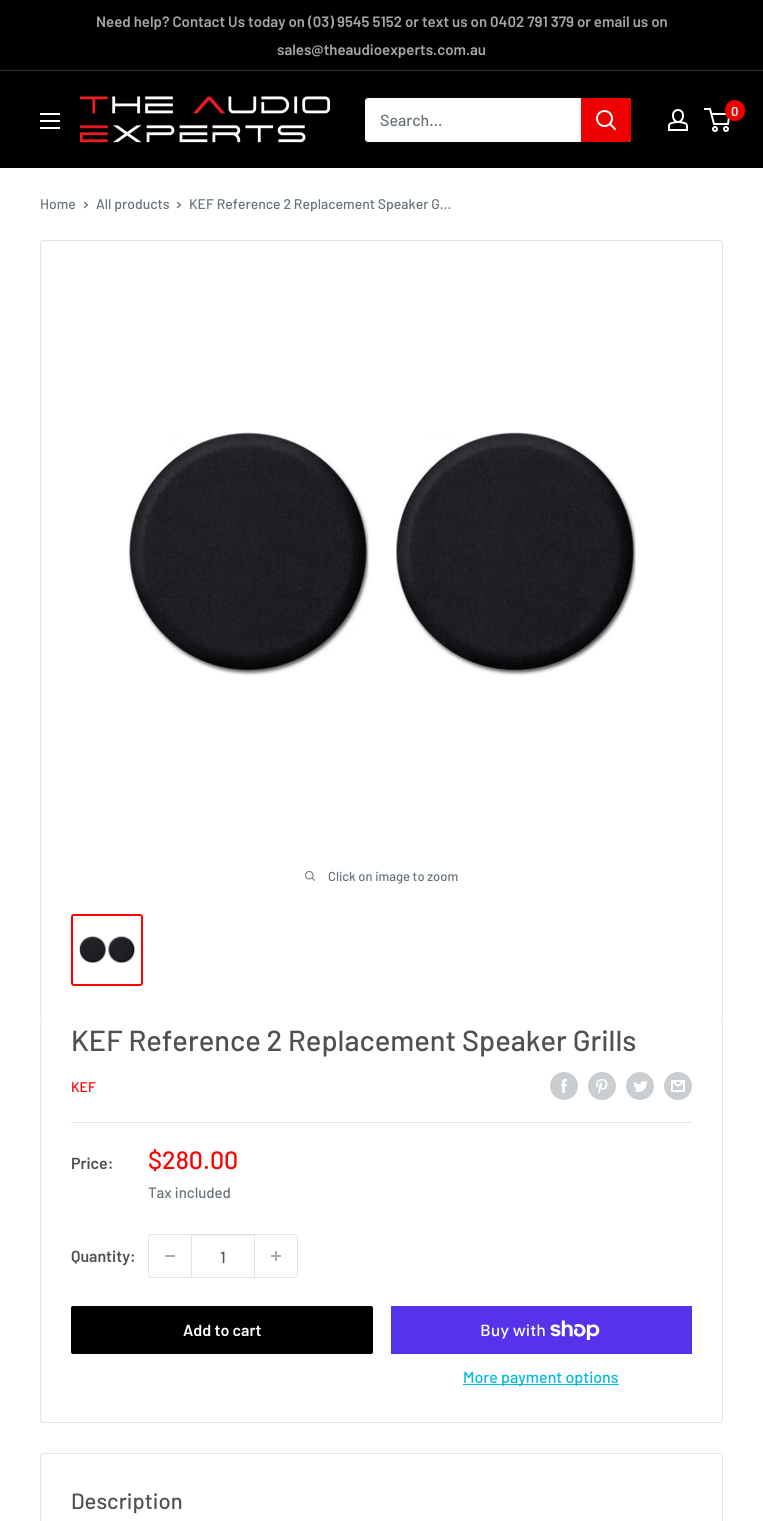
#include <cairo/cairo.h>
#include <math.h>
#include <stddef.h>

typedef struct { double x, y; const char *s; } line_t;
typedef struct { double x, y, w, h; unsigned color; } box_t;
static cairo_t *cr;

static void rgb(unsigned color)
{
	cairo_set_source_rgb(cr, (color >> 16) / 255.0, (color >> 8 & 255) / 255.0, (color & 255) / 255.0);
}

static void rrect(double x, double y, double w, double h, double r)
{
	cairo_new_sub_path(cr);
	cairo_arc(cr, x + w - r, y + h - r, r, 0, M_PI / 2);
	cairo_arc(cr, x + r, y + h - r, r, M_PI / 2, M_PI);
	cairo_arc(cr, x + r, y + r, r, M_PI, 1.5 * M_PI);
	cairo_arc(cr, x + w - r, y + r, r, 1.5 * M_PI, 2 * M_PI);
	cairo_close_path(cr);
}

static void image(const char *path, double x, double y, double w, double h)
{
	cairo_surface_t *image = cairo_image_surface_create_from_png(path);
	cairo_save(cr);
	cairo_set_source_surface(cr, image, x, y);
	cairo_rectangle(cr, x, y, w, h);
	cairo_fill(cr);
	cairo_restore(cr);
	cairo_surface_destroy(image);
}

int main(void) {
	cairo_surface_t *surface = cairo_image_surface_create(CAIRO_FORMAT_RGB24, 763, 1521);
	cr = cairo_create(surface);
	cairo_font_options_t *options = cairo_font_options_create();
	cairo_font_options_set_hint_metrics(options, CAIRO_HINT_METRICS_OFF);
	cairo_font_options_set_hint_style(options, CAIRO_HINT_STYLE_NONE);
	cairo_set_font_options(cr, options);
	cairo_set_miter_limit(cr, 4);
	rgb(0xffffff);
	cairo_paint(cr);
	{
		static const box_t items[] = {
			{0, 0, 763, 70, 0x000000},
			{0, 70, 763, 1, 0x323232},
			{0, 71, 763, 97, 0x000000},
		};
		for (size_t i = 0; i < sizeof items / sizeof *items; i++) {
			rgb(items[i].color);
			cairo_rectangle(cr, items[i].x, items[i].y, items[i].w, items[i].h);
			cairo_fill(cr);
		}
	}
	image("img/1.png", 80, 96, 250, 47);
	image("img/2.png", 668, 109, 20, 22);
	cairo_arc(cr, 715, 129, 2, 0, 2 * M_PI);
	rgb(0xffffff);
	cairo_stroke(cr);
	cairo_arc(cr, 726, 129, 2, 0, 2 * M_PI);
	cairo_stroke(cr);
	cairo_new_path(cr);
	cairo_move_to(cr, 711.5, 114);
	cairo_line_to(cr, 729.5, 114);
	cairo_line_to(cr, 728, 124);
	cairo_line_to(cr, 714, 124);
	cairo_line_to(cr, 710, 109);
	cairo_line_to(cr, 704, 109);
	cairo_stroke(cr);
	rgb(0xee0000);
	rrect(725, 100, 20, 21, 10);
	cairo_fill(cr);
	image("img/3.png", 40, 113, 20, 16);
	rgb(0xffffff);
	rrect(365, 98, 266, 44, 3);
	cairo_fill(cr);
	rgb(0xee0000);
	cairo_new_path(cr);
	cairo_move_to(cr, 581, 98);
	cairo_line_to(cr, 628, 98);
	cairo_curve_to(cr, 629.5, 98, 631, 99.5, 631, 101);
	cairo_line_to(cr, 631, 139);
	cairo_curve_to(cr, 631, 140.5, 629.5, 142, 628, 142);
	cairo_line_to(cr, 581, 142);
	cairo_close_path(cr);
	cairo_fill(cr);
	cairo_new_path(cr);
	cairo_move_to(cr, 615, 129);
	cairo_line_to(cr, 610, 124);
	rgb(0xffffff);
	cairo_set_line_cap(cr, CAIRO_LINE_CAP_SQUARE);
	cairo_stroke(cr);
	cairo_arc(cr, 604.5, 118.5, 7.5, 0, 2 * M_PI);
	cairo_set_line_cap(cr, CAIRO_LINE_CAP_BUTT);
	cairo_stroke(cr);
	cairo_new_path(cr);
	cairo_move_to(cr, 84.5, 202.5);
	cairo_line_to(cr, 87.5, 205);
	cairo_line_to(cr, 84.5, 207.5);
	rgb(0x677279);
	cairo_set_line_width(cr, 1.3);
	cairo_set_line_cap(cr, CAIRO_LINE_CAP_SQUARE);
	cairo_stroke(cr);
	cairo_new_path(cr);
	cairo_move_to(cr, 177.5, 202.5);
	cairo_line_to(cr, 180.5, 205);
	cairo_line_to(cr, 177.5, 207.5);
	cairo_stroke(cr);
	rrect(40.5, 240.5, 682, 778, 2.5);
	rgb(0xe1e3e4);
	cairo_set_line_width(cr, 1);
	cairo_set_line_cap(cr, CAIRO_LINE_CAP_BUTT);
	cairo_stroke(cr);
	image("img/4.png", 128, 432, 508, 244);
	image("img/5.png", 305, 871, 10, 10);
	rrect(72, 915, 70, 70, 2);
	rgb(0xff0000);
	cairo_set_line_width(cr, 2);
	cairo_stroke(cr);
	image("img/6.png", 79, 935, 57, 29);
	rgb(0xffffff);
	cairo_new_path(cr);
	cairo_move_to(cr, 43, 1018);
	cairo_curve_to(cr, 41, 1018, 40, 1020, 40, 1022);
	cairo_curve_to(cr, 40, 1020, 41, 1019, 43, 1019);
	cairo_line_to(cr, 720, 1019);
	cairo_curve_to(cr, 722, 1019, 723, 1020, 723, 1022);
	cairo_curve_to(cr, 723, 1020, 722, 1018, 720, 1018);
	cairo_close_path(cr);
	cairo_fill(cr);
	rgb(0xe1e3e4);
	cairo_set_fill_rule(cr, CAIRO_FILL_RULE_EVEN_ODD);
	cairo_new_path(cr);
	cairo_move_to(cr, 43, 1019);
	cairo_line_to(cr, 720, 1019);
	cairo_curve_to(cr, 722, 1019, 723, 1020, 723, 1022);
	cairo_line_to(cr, 723, 1420);
	cairo_curve_to(cr, 723, 1422, 722, 1423, 720, 1423);
	cairo_line_to(cr, 43, 1423);
	cairo_curve_to(cr, 41, 1423, 40, 1422, 40, 1420);
	cairo_line_to(cr, 40, 1022);
	cairo_curve_to(cr, 40, 1020, 41, 1019, 43, 1019);
	cairo_close_path(cr);
	cairo_move_to(cr, 43, 1019);
	cairo_line_to(cr, 720, 1019);
	cairo_curve_to(cr, 721, 1019, 722, 1020, 722, 1022);
	cairo_line_to(cr, 722, 1420);
	cairo_curve_to(cr, 722, 1421, 721, 1422, 720, 1422);
	cairo_line_to(cr, 43, 1422);
	cairo_curve_to(cr, 42, 1422, 41, 1421, 41, 1420);
	cairo_line_to(cr, 41, 1022);
	cairo_curve_to(cr, 41, 1020, 42, 1019, 43, 1019);
	cairo_close_path(cr);
	cairo_fill(cr);
	image("img/7.png", 550, 1072, 28, 28);
	image("img/8.png", 588, 1072, 28, 28);
	image("img/9.png", 626, 1072, 28, 28);
	image("img/10.png", 664, 1072, 28, 28);
	cairo_rectangle(cr, 71, 1122, 621, 1);
	cairo_fill(cr);
	rrect(148.5, 1234.5, 149, 43, 2.5);
	cairo_set_line_width(cr, 1);
	cairo_stroke(cr);
	{
		static const box_t items[] = {
			{165, 1255, 10, 2, 0xa4aaaf},
			{192, 1235, 62, 1, 0xf3f4f4},
			{254, 1235, 1, 42, 0xe1e3e4},
			{191, 1235, 1, 42, 0xe1e3e4},
		};
		for (size_t i = 0; i < sizeof items / sizeof *items; i++) {
			rgb(items[i].color);
			cairo_rectangle(cr, items[i].x, items[i].y, items[i].w, items[i].h);
			cairo_fill(cr);
		}
	}
	image("img/11.png", 271, 1251, 10, 10);
	rgb(0x000000);
	rrect(71, 1306, 302, 48, 2);
	cairo_fill(cr);
	rgb(0x5433eb);
	cairo_rectangle(cr, 391, 1306, 301, 48);
	cairo_fill(cr);
	image("img/12.png", 550, 1320, 50, 20);
	rgb(0x00badb);
	cairo_rectangle(cr, 463, 1384, 156, 1);
	cairo_fill(cr);
	rrect(40.5, 1453.5, 682, 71, 2.5);
	rgb(0xe1e3e4);
	cairo_stroke(cr);
	cairo_select_font_face(cr, "Barlow SemiBold", CAIRO_FONT_SLANT_NORMAL, CAIRO_FONT_WEIGHT_NORMAL);
	cairo_set_font_size(cr, 15);
	rgb(0xa7a7a7);
	cairo_move_to(cr, 96, 27);
	cairo_show_text(cr, "Need help? Contact Us today on (03) 9545 5152 or text us on 0402 791 379 or email us on");
	cairo_move_to(cr, 277, 55);
	cairo_show_text(cr, "sales@theaudioexperts.com.au");
	cairo_set_font_size(cr, 13);
	rgb(0xffffff);
	cairo_move_to(cr, 731, 116);
	cairo_show_text(cr, "0");
	cairo_select_font_face(cr, "Barlow Medium", CAIRO_FONT_SLANT_NORMAL, CAIRO_FONT_WEIGHT_NORMAL);
	cairo_set_font_size(cr, 16);
	rgb(0x677279);
	cairo_move_to(cr, 380, 126);
	cairo_show_text(cr, "Search...");
	cairo_set_font_size(cr, 14);
	{
		static const line_t items[] = {
			{40, 209, "Home"},
			{96, 209, "All products"},
			{189, 209, "KEF Reference 2 Replacement Speaker G..."},
		};
		for (size_t i = 0; i < sizeof items / sizeof *items; i++) {
			cairo_move_to(cr, items[i].x, items[i].y);
			cairo_show_text(cr, items[i].s);
		}
	}
	cairo_set_font_size(cr, 13);
	cairo_move_to(cr, 328, 881);
	cairo_show_text(cr, "Click on image to zoom");
	cairo_set_font_size(cr, 29);
	rgb(0x505050);
	cairo_move_to(cr, 71, 1051);
	cairo_show_text(cr, "KEF Reference 2 Replacement Speaker Grills");
	cairo_set_font_size(cr, 14);
	rgb(0xff0000);
	cairo_move_to(cr, 71, 1092);
	cairo_show_text(cr, "KEF");
	cairo_select_font_face(cr, "Barlow SemiBold", CAIRO_FONT_SLANT_NORMAL, CAIRO_FONT_WEIGHT_NORMAL);
	cairo_set_font_size(cr, 16);
	rgb(0x505050);
	cairo_move_to(cr, 71, 1169);
	cairo_show_text(cr, "Price:");
	cairo_select_font_face(cr, "Barlow Medium", CAIRO_FONT_SLANT_NORMAL, CAIRO_FONT_WEIGHT_NORMAL);
	cairo_set_font_size(cr, 25);
	rgb(0xff0000);
	cairo_move_to(cr, 148, 1169);
	cairo_show_text(cr, "$280.00");
	cairo_set_font_size(cr, 15);
	rgb(0x677279);
	cairo_move_to(cr, 148, 1198);
	cairo_show_text(cr, "Tax included");
	cairo_select_font_face(cr, "Barlow SemiBold", CAIRO_FONT_SLANT_NORMAL, CAIRO_FONT_WEIGHT_NORMAL);
	cairo_set_font_size(cr, 16);
	rgb(0x505050);
	cairo_move_to(cr, 71, 1262);
	cairo_show_text(cr, "Quantity:");
	cairo_select_font_face(cr, "Barlow Medium", CAIRO_FONT_SLANT_NORMAL, CAIRO_FONT_WEIGHT_NORMAL);
	cairo_move_to(cr, 220, 1263);
	cairo_show_text(cr, "1");
	cairo_select_font_face(cr, "Barlow SemiBold", CAIRO_FONT_SLANT_NORMAL, CAIRO_FONT_WEIGHT_NORMAL);
	rgb(0xffffff);
	cairo_move_to(cr, 183, 1336);
	cairo_show_text(cr, "Add to cart");
	cairo_select_font_face(cr, "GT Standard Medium", CAIRO_FONT_SLANT_NORMAL, CAIRO_FONT_WEIGHT_NORMAL);
	cairo_move_to(cr, 480, 1336);
	cairo_show_text(cr, "Buy with");
	cairo_select_font_face(cr, "Barlow Medium", CAIRO_FONT_SLANT_NORMAL, CAIRO_FONT_WEIGHT_NORMAL);
	rgb(0x00badb);
	cairo_move_to(cr, 463, 1383);
	cairo_show_text(cr, "More payment options");
	cairo_set_font_size(cr, 22);
	rgb(0x505050);
	cairo_move_to(cr, 71, 1509);
	cairo_show_text(cr, "Description");
	cairo_surface_write_to_png(surface, "page.png");
	cairo_font_options_destroy(options);
	cairo_destroy(cr);
	cairo_surface_destroy(surface);
	return 0;
}
